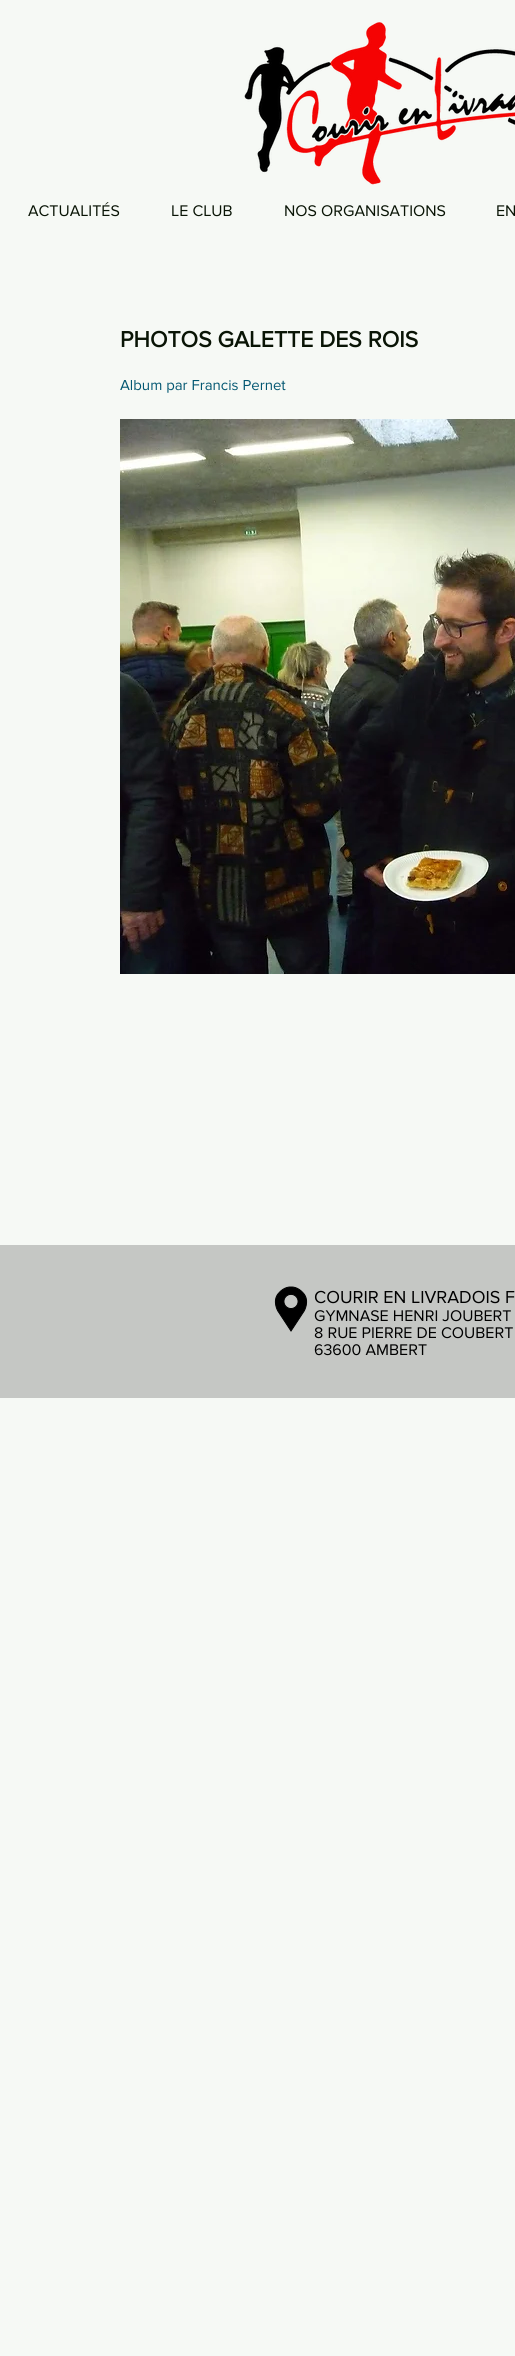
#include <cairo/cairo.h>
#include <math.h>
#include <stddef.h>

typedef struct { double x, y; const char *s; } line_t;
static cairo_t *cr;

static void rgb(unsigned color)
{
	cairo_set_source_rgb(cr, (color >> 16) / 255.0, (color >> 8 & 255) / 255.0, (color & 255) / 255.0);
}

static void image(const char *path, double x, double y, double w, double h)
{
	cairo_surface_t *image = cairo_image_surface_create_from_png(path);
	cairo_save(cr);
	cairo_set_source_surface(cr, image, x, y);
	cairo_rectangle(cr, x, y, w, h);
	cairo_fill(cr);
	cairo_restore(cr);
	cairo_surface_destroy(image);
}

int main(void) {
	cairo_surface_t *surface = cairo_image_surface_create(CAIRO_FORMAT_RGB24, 515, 2356);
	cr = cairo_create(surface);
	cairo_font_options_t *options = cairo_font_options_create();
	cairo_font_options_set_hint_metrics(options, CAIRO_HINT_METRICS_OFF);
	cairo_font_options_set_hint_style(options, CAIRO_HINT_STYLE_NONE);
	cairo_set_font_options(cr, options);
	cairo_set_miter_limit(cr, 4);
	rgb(0xf6f9f5);
	cairo_paint(cr);
	image("img/1.png", 244, 22, 271, 163);
	image("img/2.png", 120, 419, 395, 555);
	rgb(0xc5c7c4);
	cairo_rectangle(cr, 0, 1245, 515, 153);
	cairo_fill(cr);
	image("img/3.png", 274, 1286, 34, 46);
	cairo_select_font_face(cr, "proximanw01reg", CAIRO_FONT_SLANT_NORMAL, CAIRO_FONT_WEIGHT_NORMAL);
	cairo_set_font_size(cr, 16);
	rgb(0x091405);
	{
		static const line_t items[] = {
			{28, 216, "ACTUALITÉS"},
			{171, 216, "LE CLUB"},
			{284, 216, "NOS ORGANISATIONS"},
			{496, 216, "EN"},
		};
		for (size_t i = 0; i < sizeof items / sizeof *items; i++) {
			cairo_move_to(cr, items[i].x, items[i].y);
			cairo_show_text(cr, items[i].s);
		}
	}
	cairo_select_font_face(cr, "proximanw01reg", CAIRO_FONT_SLANT_NORMAL, CAIRO_FONT_WEIGHT_BOLD);
	cairo_set_font_size(cr, 23);
	cairo_move_to(cr, 120, 347);
	cairo_show_text(cr, "PHOTOS GALETTE DES ROIS");
	cairo_select_font_face(cr, "proximanw01reg", CAIRO_FONT_SLANT_NORMAL, CAIRO_FONT_WEIGHT_NORMAL);
	cairo_set_font_size(cr, 15);
	rgb(0x035772);
	cairo_move_to(cr, 120, 390);
	cairo_show_text(cr, "Album par Francis Pernet");
	cairo_set_font_size(cr, 18);
	rgb(0x000000);
	cairo_move_to(cr, 314, 1303);
	cairo_show_text(cr, "COURIR EN LIVRADOIS F");
	cairo_set_font_size(cr, 16);
	{
		static const line_t items[] = {
			{314, 1321, "GYMNASE HENRI JOUBERT"},
			{314, 1338, "8 RUE PIERRE DE COUBERT"},
			{314, 1355, "63600 AMBERT"},
		};
		for (size_t i = 0; i < sizeof items / sizeof *items; i++) {
			cairo_move_to(cr, items[i].x, items[i].y);
			cairo_show_text(cr, items[i].s);
		}
	}
	cairo_surface_write_to_png(surface, "page.png");
	cairo_font_options_destroy(options);
	cairo_destroy(cr);
	cairo_surface_destroy(surface);
	return 0;
}
